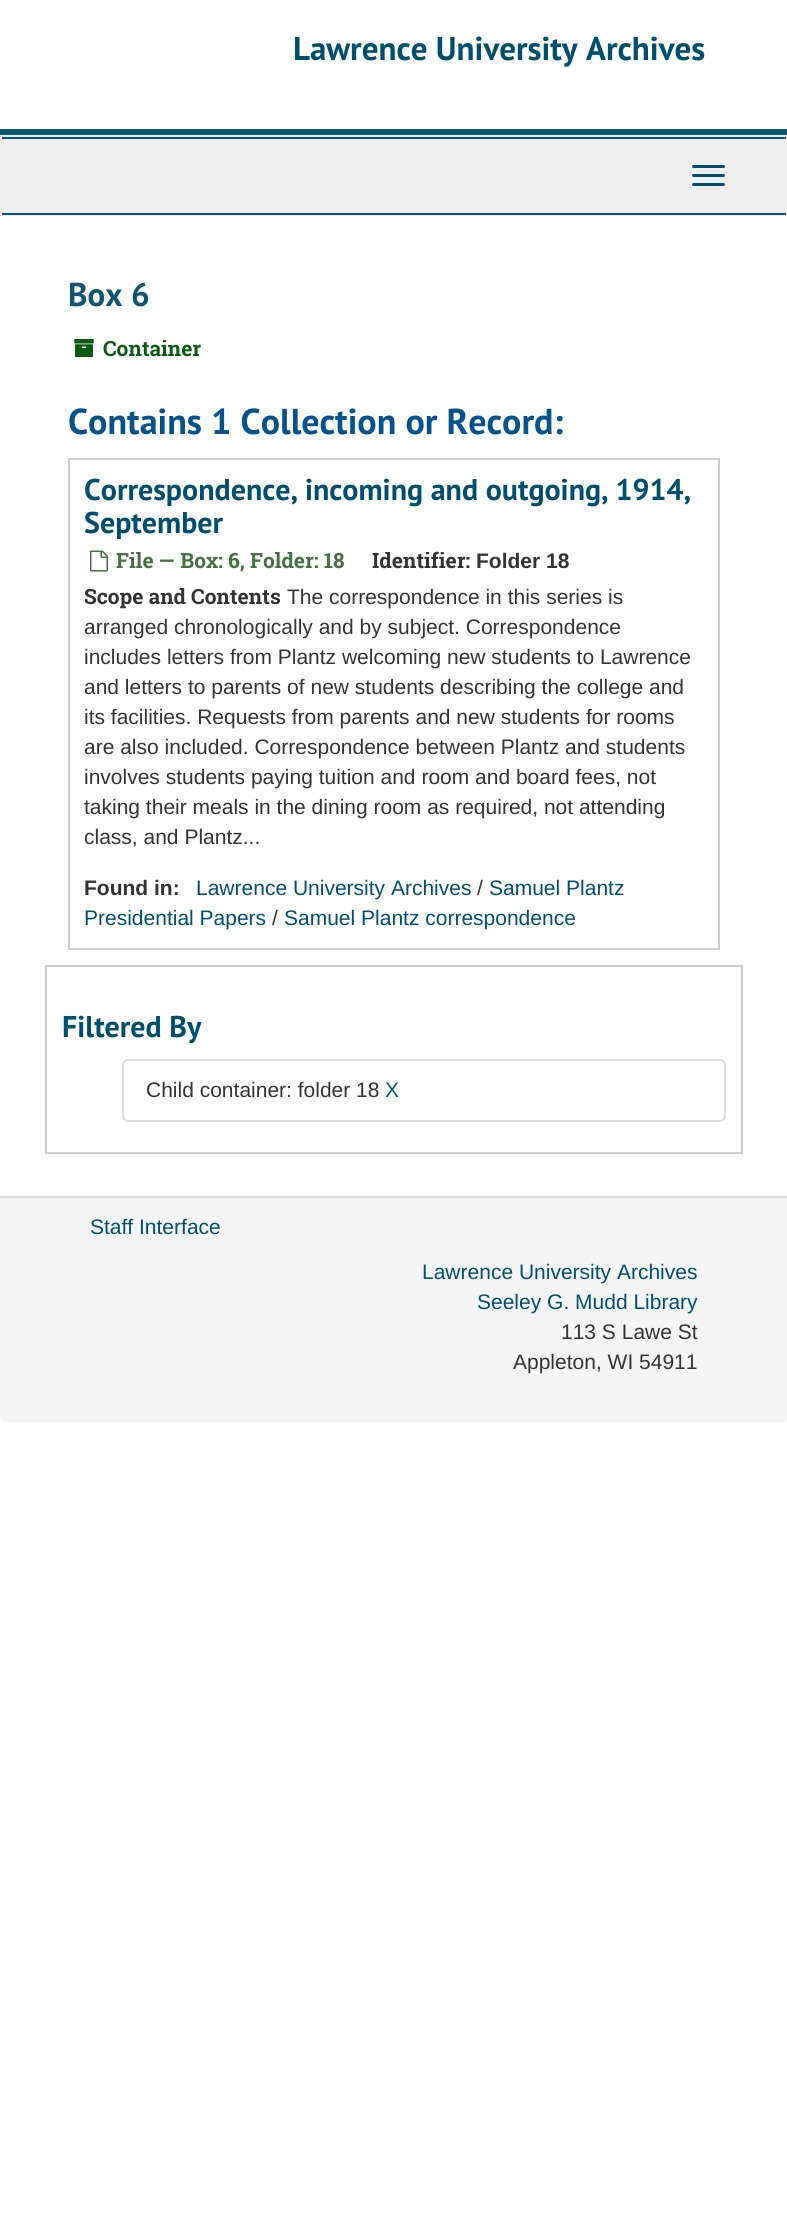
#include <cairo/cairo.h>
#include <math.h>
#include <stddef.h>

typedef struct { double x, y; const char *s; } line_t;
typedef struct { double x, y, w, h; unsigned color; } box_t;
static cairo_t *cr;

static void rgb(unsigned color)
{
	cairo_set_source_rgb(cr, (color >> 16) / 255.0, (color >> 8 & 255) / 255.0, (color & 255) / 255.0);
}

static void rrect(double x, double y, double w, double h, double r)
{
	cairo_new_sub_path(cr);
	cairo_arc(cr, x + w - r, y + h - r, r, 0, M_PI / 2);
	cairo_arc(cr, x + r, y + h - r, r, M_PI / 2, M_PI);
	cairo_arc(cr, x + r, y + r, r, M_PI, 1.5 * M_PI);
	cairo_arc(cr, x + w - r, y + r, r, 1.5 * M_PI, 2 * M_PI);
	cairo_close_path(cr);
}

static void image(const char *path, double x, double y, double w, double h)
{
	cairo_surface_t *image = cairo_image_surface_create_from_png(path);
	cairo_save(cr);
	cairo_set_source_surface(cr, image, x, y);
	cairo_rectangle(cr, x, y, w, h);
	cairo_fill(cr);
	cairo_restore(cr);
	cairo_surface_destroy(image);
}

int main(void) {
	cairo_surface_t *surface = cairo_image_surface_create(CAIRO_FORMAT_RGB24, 787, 2236);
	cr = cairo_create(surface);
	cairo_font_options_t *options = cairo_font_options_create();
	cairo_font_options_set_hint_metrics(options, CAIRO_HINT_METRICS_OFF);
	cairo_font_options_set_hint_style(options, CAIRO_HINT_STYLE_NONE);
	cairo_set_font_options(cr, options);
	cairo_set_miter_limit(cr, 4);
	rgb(0xffffff);
	cairo_paint(cr);
	{
		static const box_t items[] = {
			{0, 129, 787, 6, 0x0f5670},
			{0, 135, 787, 81, 0xeeeeee},
			{2, 137, 784, 2, 0x05538a},
			{2, 213, 784, 2, 0x05538a},
		};
		for (size_t i = 0; i < sizeof items / sizeof *items; i++) {
			rgb(items[i].color);
			cairo_rectangle(cr, items[i].x, items[i].y, items[i].w, items[i].h);
			cairo_fill(cr);
		}
	}
	rgb(0x004f6f);
	rrect(692, 165, 33, 3, 1.5);
	cairo_fill(cr);
	rrect(692, 174, 33, 3, 1.5);
	cairo_fill(cr);
	rrect(692, 183, 33, 3, 1.5);
	cairo_fill(cr);
	image("img/1.png", 74, 339, 20, 18);
	cairo_rectangle(cr, 69, 459, 650, 490);
	rgb(0xcccccc);
	cairo_stroke(cr);
	image("img/2.png", 90, 550, 18, 22);
	cairo_rectangle(cr, 46, 966, 696, 187);
	cairo_stroke(cr);
	rrect(123, 1060, 602, 61, 5);
	rgb(0xdddddd);
	cairo_stroke(cr);
	rgb(0xf5f5f5);
	cairo_new_path(cr);
	cairo_move_to(cr, 0, 1196);
	cairo_line_to(cr, 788, 1196);
	cairo_line_to(cr, 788, 1417);
	cairo_curve_to(cr, 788, 1420, 786, 1422, 783, 1422);
	cairo_line_to(cr, 5, 1422);
	cairo_curve_to(cr, 2, 1422, 0, 1420, 0, 1417);
	cairo_close_path(cr);
	cairo_fill(cr);
	rgb(0xdddddd);
	cairo_rectangle(cr, 0, 1196, 787, 2);
	cairo_fill(cr);
	cairo_select_font_face(cr, "PT Sans", CAIRO_FONT_SLANT_NORMAL, CAIRO_FONT_WEIGHT_BOLD);
	cairo_set_font_size(cr, 33);
	rgb(0x004f6f);
	cairo_move_to(cr, 293, 60);
	cairo_show_text(cr, "Lawrence University Archives");
	rgb(0x0f5670);
	cairo_move_to(cr, 68, 306);
	cairo_show_text(cr, "Box 6");
	cairo_select_font_face(cr, "Roboto Slab", CAIRO_FONT_SLANT_NORMAL, CAIRO_FONT_WEIGHT_BOLD);
	cairo_set_font_size(cr, 21);
	rgb(0x0b5a14);
	cairo_move_to(cr, 103, 356);
	cairo_show_text(cr, "Container");
	cairo_select_font_face(cr, "PT Sans", CAIRO_FONT_SLANT_NORMAL, CAIRO_FONT_WEIGHT_BOLD);
	cairo_set_font_size(cr, 36);
	rgb(0x05538a);
	cairo_move_to(cr, 68, 434);
	cairo_show_text(cr, "Contains 1 Collection or Record:");
	cairo_set_font_size(cr, 30);
	rgb(0x004f6f);
	cairo_move_to(cr, 84, 500);
	cairo_show_text(cr, "Correspondence, incoming and outgoing, 1914,");
	cairo_move_to(cr, 84, 533);
	cairo_show_text(cr, "September");
	cairo_select_font_face(cr, "Roboto Slab", CAIRO_FONT_SLANT_NORMAL, CAIRO_FONT_WEIGHT_BOLD);
	cairo_set_font_size(cr, 21);
	rgb(0x457141);
	cairo_move_to(cr, 116, 568);
	cairo_show_text(cr, "File — Box: 6, Folder: 18");
	rgb(0x333333);
	cairo_move_to(cr, 372, 568);
	cairo_show_text(cr, "Identifier:");
	cairo_select_font_face(cr, "Liberation Sans", CAIRO_FONT_SLANT_NORMAL, CAIRO_FONT_WEIGHT_BOLD);
	cairo_move_to(cr, 476, 568);
	cairo_show_text(cr, "Folder 18");
	cairo_select_font_face(cr, "Roboto Slab", CAIRO_FONT_SLANT_NORMAL, CAIRO_FONT_WEIGHT_BOLD);
	cairo_move_to(cr, 84, 604);
	cairo_show_text(cr, "Scope and Contents");
	cairo_select_font_face(cr, "Liberation Sans", CAIRO_FONT_SLANT_NORMAL, CAIRO_FONT_WEIGHT_NORMAL);
	{
		static const line_t items[] = {
			{287, 604, "The correspondence in this series is"},
			{84, 634, "arranged chronologically and by subject. Correspondence"},
			{84, 664, "includes letters from Plantz welcoming new students to Lawrence"},
			{84, 694, "and letters to parents of new students describing the college and"},
			{84, 724, "its facilities. Requests from parents and new students for rooms"},
			{84, 754, "are also included. Correspondence between Plantz and students"},
			{84, 784, "involves students paying tuition and room and board fees, not"},
			{84, 814, "taking their meals in the dining room as required, not attending"},
			{84, 844, "class, and Plantz..."},
		};
		for (size_t i = 0; i < sizeof items / sizeof *items; i++) {
			cairo_move_to(cr, items[i].x, items[i].y);
			cairo_show_text(cr, items[i].s);
		}
	}
	cairo_select_font_face(cr, "Liberation Sans", CAIRO_FONT_SLANT_NORMAL, CAIRO_FONT_WEIGHT_BOLD);
	cairo_move_to(cr, 84, 895);
	cairo_show_text(cr, "Found in:");
	cairo_select_font_face(cr, "Liberation Sans", CAIRO_FONT_SLANT_NORMAL, CAIRO_FONT_WEIGHT_NORMAL);
	rgb(0x004f6f);
	cairo_move_to(cr, 196, 895);
	cairo_show_text(cr, "Lawrence University Archives");
	rgb(0x333333);
	cairo_move_to(cr, 477, 895);
	cairo_show_text(cr, "/");
	rgb(0x004f6f);
	cairo_move_to(cr, 489, 895);
	cairo_show_text(cr, "Samuel Plantz");
	cairo_move_to(cr, 84, 925);
	cairo_show_text(cr, "Presidential Papers");
	rgb(0x333333);
	cairo_move_to(cr, 272, 925);
	cairo_show_text(cr, "/");
	rgb(0x004f6f);
	cairo_move_to(cr, 284, 925);
	cairo_show_text(cr, "Samuel Plantz correspondence");
	cairo_select_font_face(cr, "PT Sans", CAIRO_FONT_SLANT_NORMAL, CAIRO_FONT_WEIGHT_BOLD);
	cairo_set_font_size(cr, 30);
	cairo_move_to(cr, 62, 1037);
	cairo_show_text(cr, "Filtered By");
	cairo_select_font_face(cr, "Liberation Sans", CAIRO_FONT_SLANT_NORMAL, CAIRO_FONT_WEIGHT_NORMAL);
	cairo_set_font_size(cr, 21);
	rgb(0x333333);
	cairo_move_to(cr, 146, 1097);
	cairo_show_text(cr, "Child container: folder 18");
	rgb(0x004f6f);
	{
		static const line_t items[] = {
			{385, 1097, "X"},
			{90, 1234, "Staff Interface"},
			{422, 1279, "Lawrence University Archives"},
			{477, 1309, "Seeley G. Mudd Library"},
		};
		for (size_t i = 0; i < sizeof items / sizeof *items; i++) {
			cairo_move_to(cr, items[i].x, items[i].y);
			cairo_show_text(cr, items[i].s);
		}
	}
	rgb(0x333333);
	cairo_move_to(cr, 561, 1339);
	cairo_show_text(cr, "113 S Lawe St");
	cairo_move_to(cr, 513, 1369);
	cairo_show_text(cr, "Appleton, WI 54911");
	cairo_surface_write_to_png(surface, "page.png");
	cairo_font_options_destroy(options);
	cairo_destroy(cr);
	cairo_surface_destroy(surface);
	return 0;
}
